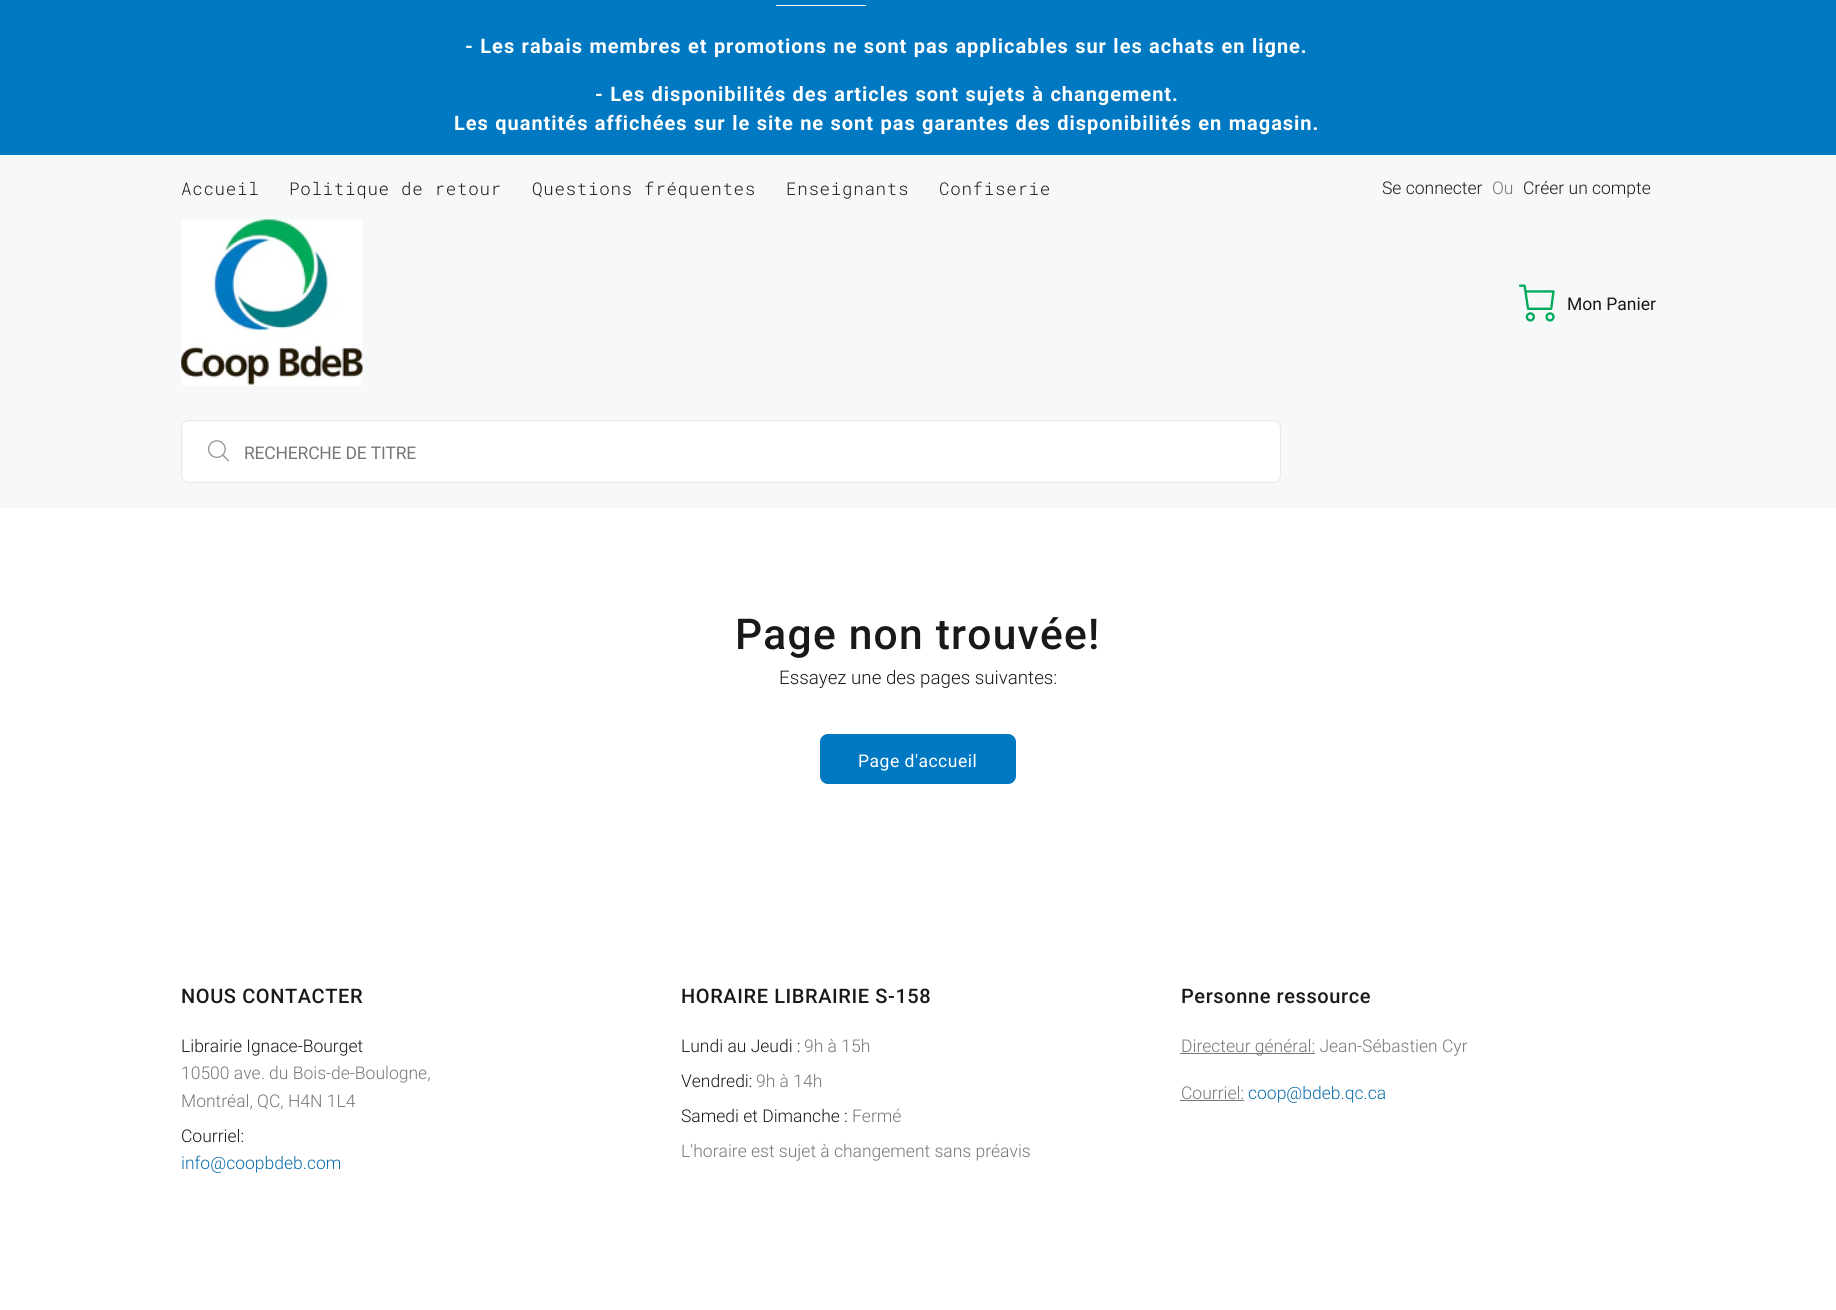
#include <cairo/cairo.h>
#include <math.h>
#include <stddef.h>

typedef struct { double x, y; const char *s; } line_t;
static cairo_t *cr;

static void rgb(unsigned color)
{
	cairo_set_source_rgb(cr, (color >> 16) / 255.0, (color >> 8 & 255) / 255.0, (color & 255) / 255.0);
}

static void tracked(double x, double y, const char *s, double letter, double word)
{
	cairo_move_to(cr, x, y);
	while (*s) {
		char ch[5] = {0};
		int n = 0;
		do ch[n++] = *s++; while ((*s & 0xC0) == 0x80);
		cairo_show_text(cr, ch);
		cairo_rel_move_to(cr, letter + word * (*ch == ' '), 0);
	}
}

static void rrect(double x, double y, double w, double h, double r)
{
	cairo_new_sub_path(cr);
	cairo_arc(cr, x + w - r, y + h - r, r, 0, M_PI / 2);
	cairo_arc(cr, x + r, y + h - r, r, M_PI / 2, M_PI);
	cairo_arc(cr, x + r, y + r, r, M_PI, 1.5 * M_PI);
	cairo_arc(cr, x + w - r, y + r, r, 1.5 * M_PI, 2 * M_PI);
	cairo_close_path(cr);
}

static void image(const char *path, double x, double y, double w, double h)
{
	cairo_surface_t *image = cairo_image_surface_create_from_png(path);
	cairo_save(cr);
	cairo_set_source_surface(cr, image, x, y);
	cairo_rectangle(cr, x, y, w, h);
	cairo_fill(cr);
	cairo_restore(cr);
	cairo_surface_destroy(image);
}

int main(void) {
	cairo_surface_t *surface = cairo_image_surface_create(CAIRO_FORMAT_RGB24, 1836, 1310);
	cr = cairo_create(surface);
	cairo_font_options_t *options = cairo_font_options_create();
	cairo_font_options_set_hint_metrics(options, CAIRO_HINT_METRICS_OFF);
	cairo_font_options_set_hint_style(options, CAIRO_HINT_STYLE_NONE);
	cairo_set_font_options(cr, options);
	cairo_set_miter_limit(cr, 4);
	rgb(0xf7f8fa);
	cairo_paint(cr);
	rgb(0x0079c2);
	cairo_rectangle(cr, 0, 0, 1836, 155);
	cairo_fill(cr);
	rgb(0xffffff);
	cairo_rectangle(cr, 776, 5, 90, 1);
	cairo_fill(cr);
	image("img/1.png", 181, 219, 182, 167);
	image("img/2.png", 1518, 284, 37, 38);
	rrect(181.5, 420.5, 1099, 62, 7.5);
	cairo_fill_preserve(cr);
	rgb(0xe9e7e7);
	cairo_set_line_width(cr, 1);
	cairo_stroke(cr);
	image("img/3.png", 208, 440, 22, 22);
	rgb(0xffffff);
	cairo_rectangle(cr, 0, 508, 1836, 802);
	cairo_fill(cr);
	rgb(0x0079c2);
	rrect(820, 734, 196, 50, 8);
	cairo_fill(cr);
	rgb(0x777777);
	cairo_rectangle(cr, 1180, 1053, 135, 1);
	cairo_fill(cr);
	cairo_rectangle(cr, 1180, 1100, 64, 1);
	cairo_fill(cr);
	cairo_select_font_face(cr, "Roboto", CAIRO_FONT_SLANT_NORMAL, CAIRO_FONT_WEIGHT_BOLD);
	cairo_set_font_size(cr, 20);
	rgb(0xffffff);
	{
		static const line_t items[] = {
			{465, 53, "- Les rabais membres et promotions ne sont pas applicables sur les achats en ligne."},
			{595, 101, "- Les disponibilités des articles sont sujets à changement."},
			{454, 130, "Les quantités affichées sur le site ne sont pas garantes des disponibilités en magasin."},
		};
		for (size_t i = 0; i < sizeof items / sizeof *items; i++) {
			tracked(items[i].x, items[i].y, items[i].s, 0.98, 0.5);
		}
	}
	cairo_select_font_face(cr, "Roboto Mono Light", CAIRO_FONT_SLANT_NORMAL, CAIRO_FONT_WEIGHT_NORMAL);
	cairo_set_font_size(cr, 17.5);
	rgb(0x191919);
	{
		static const line_t items[] = {
			{181, 195, "Accueil"},
			{289, 195, "Politique de retour"},
			{532, 195, "Questions fréquentes"},
			{786, 195, "Enseignants"},
			{939, 195, "Confiserie"},
		};
		for (size_t i = 0; i < sizeof items / sizeof *items; i++) {
			tracked(items[i].x, items[i].y, items[i].s, 0.7, 0);
		}
	}
	cairo_select_font_face(cr, "Roboto Light", CAIRO_FONT_SLANT_NORMAL, CAIRO_FONT_WEIGHT_NORMAL);
	cairo_move_to(cr, 1382, 194);
	cairo_show_text(cr, "Se connecter");
	rgb(0x777777);
	cairo_move_to(cr, 1492, 194);
	cairo_show_text(cr, "Ou");
	rgb(0x191919);
	cairo_move_to(cr, 1523, 194);
	cairo_show_text(cr, "Créer un compte");
	cairo_select_font_face(cr, "Roboto", CAIRO_FONT_SLANT_NORMAL, CAIRO_FONT_WEIGHT_NORMAL);
	cairo_move_to(cr, 1567, 310);
	cairo_show_text(cr, "Mon Panier");
	rgb(0x777777);
	tracked(244, 459, "RECHERCHE DE TITRE", -0.2, 0);
	cairo_select_font_face(cr, "Roboto Medium", CAIRO_FONT_SLANT_NORMAL, CAIRO_FONT_WEIGHT_NORMAL);
	cairo_set_font_size(cr, 42.5);
	rgb(0x191919);
	tracked(735, 649, "Page non trouvée!", 1.25, 0);
	cairo_select_font_face(cr, "Roboto Light", CAIRO_FONT_SLANT_NORMAL, CAIRO_FONT_WEIGHT_NORMAL);
	cairo_set_font_size(cr, 18.75);
	cairo_move_to(cr, 779, 684);
	cairo_show_text(cr, "Essayez une des pages suivantes:");
	cairo_select_font_face(cr, "Roboto", CAIRO_FONT_SLANT_NORMAL, CAIRO_FONT_WEIGHT_NORMAL);
	cairo_set_font_size(cr, 17.5);
	rgb(0xffffff);
	tracked(858, 767, "Page d'accueil", 0.5, 0);
	cairo_select_font_face(cr, "Roboto Medium", CAIRO_FONT_SLANT_NORMAL, CAIRO_FONT_WEIGHT_NORMAL);
	cairo_set_font_size(cr, 20);
	rgb(0x191919);
	tracked(181, 1003, "NOUS CONTACTER", 0.6, 0);
	cairo_select_font_face(cr, "Roboto Light", CAIRO_FONT_SLANT_NORMAL, CAIRO_FONT_WEIGHT_NORMAL);
	cairo_set_font_size(cr, 17.5);
	cairo_move_to(cr, 181, 1052);
	cairo_show_text(cr, "Librairie Ignace-Bourget");
	rgb(0x777777);
	cairo_move_to(cr, 181, 1079);
	cairo_show_text(cr, "10500 ave. du Bois-de-Boulogne,");
	cairo_move_to(cr, 181, 1107);
	cairo_show_text(cr, "Montréal, QC, H4N 1L4");
	rgb(0x191919);
	cairo_move_to(cr, 181, 1142);
	cairo_show_text(cr, "Courriel:");
	rgb(0x0a6da9);
	cairo_move_to(cr, 181, 1169);
	cairo_show_text(cr, "info@coopbdeb.com");
	cairo_select_font_face(cr, "Roboto Medium", CAIRO_FONT_SLANT_NORMAL, CAIRO_FONT_WEIGHT_NORMAL);
	cairo_set_font_size(cr, 20);
	rgb(0x191919);
	tracked(681, 1003, "HORAIRE LIBRAIRIE S-158", 0.6, 0);
	cairo_select_font_face(cr, "Roboto Light", CAIRO_FONT_SLANT_NORMAL, CAIRO_FONT_WEIGHT_NORMAL);
	cairo_set_font_size(cr, 17.5);
	cairo_move_to(cr, 681, 1052);
	cairo_show_text(cr, "Lundi au Jeudi :");
	rgb(0x777777);
	cairo_move_to(cr, 804, 1052);
	cairo_show_text(cr, "9h à 15h");
	rgb(0x191919);
	cairo_move_to(cr, 681, 1087);
	cairo_show_text(cr, "Vendredi:");
	rgb(0x777777);
	cairo_move_to(cr, 756, 1087);
	cairo_show_text(cr, "9h à 14h");
	rgb(0x191919);
	cairo_move_to(cr, 681, 1122);
	cairo_show_text(cr, "Samedi et Dimanche :");
	rgb(0x777777);
	cairo_move_to(cr, 852, 1122);
	cairo_show_text(cr, "Fermé");
	cairo_move_to(cr, 681, 1157);
	cairo_show_text(cr, "L'horaire est sujet à changement sans préavis");
	cairo_select_font_face(cr, "Roboto Medium", CAIRO_FONT_SLANT_NORMAL, CAIRO_FONT_WEIGHT_NORMAL);
	cairo_set_font_size(cr, 20);
	rgb(0x191919);
	tracked(1181, 1003, "Personne ressource", 0.6, 0);
	cairo_select_font_face(cr, "Roboto Light", CAIRO_FONT_SLANT_NORMAL, CAIRO_FONT_WEIGHT_NORMAL);
	cairo_set_font_size(cr, 17.5);
	rgb(0x777777);
	cairo_move_to(cr, 1181, 1052);
	cairo_show_text(cr, "Directeur général: Jean-Sébastien Cyr");
	cairo_move_to(cr, 1181, 1099);
	cairo_show_text(cr, "Courriel:");
	rgb(0x0a6da9);
	cairo_move_to(cr, 1248, 1099);
	cairo_show_text(cr, "coop@bdeb.qc.ca");
	cairo_surface_write_to_png(surface, "page.png");
	cairo_font_options_destroy(options);
	cairo_destroy(cr);
	cairo_surface_destroy(surface);
	return 0;
}
